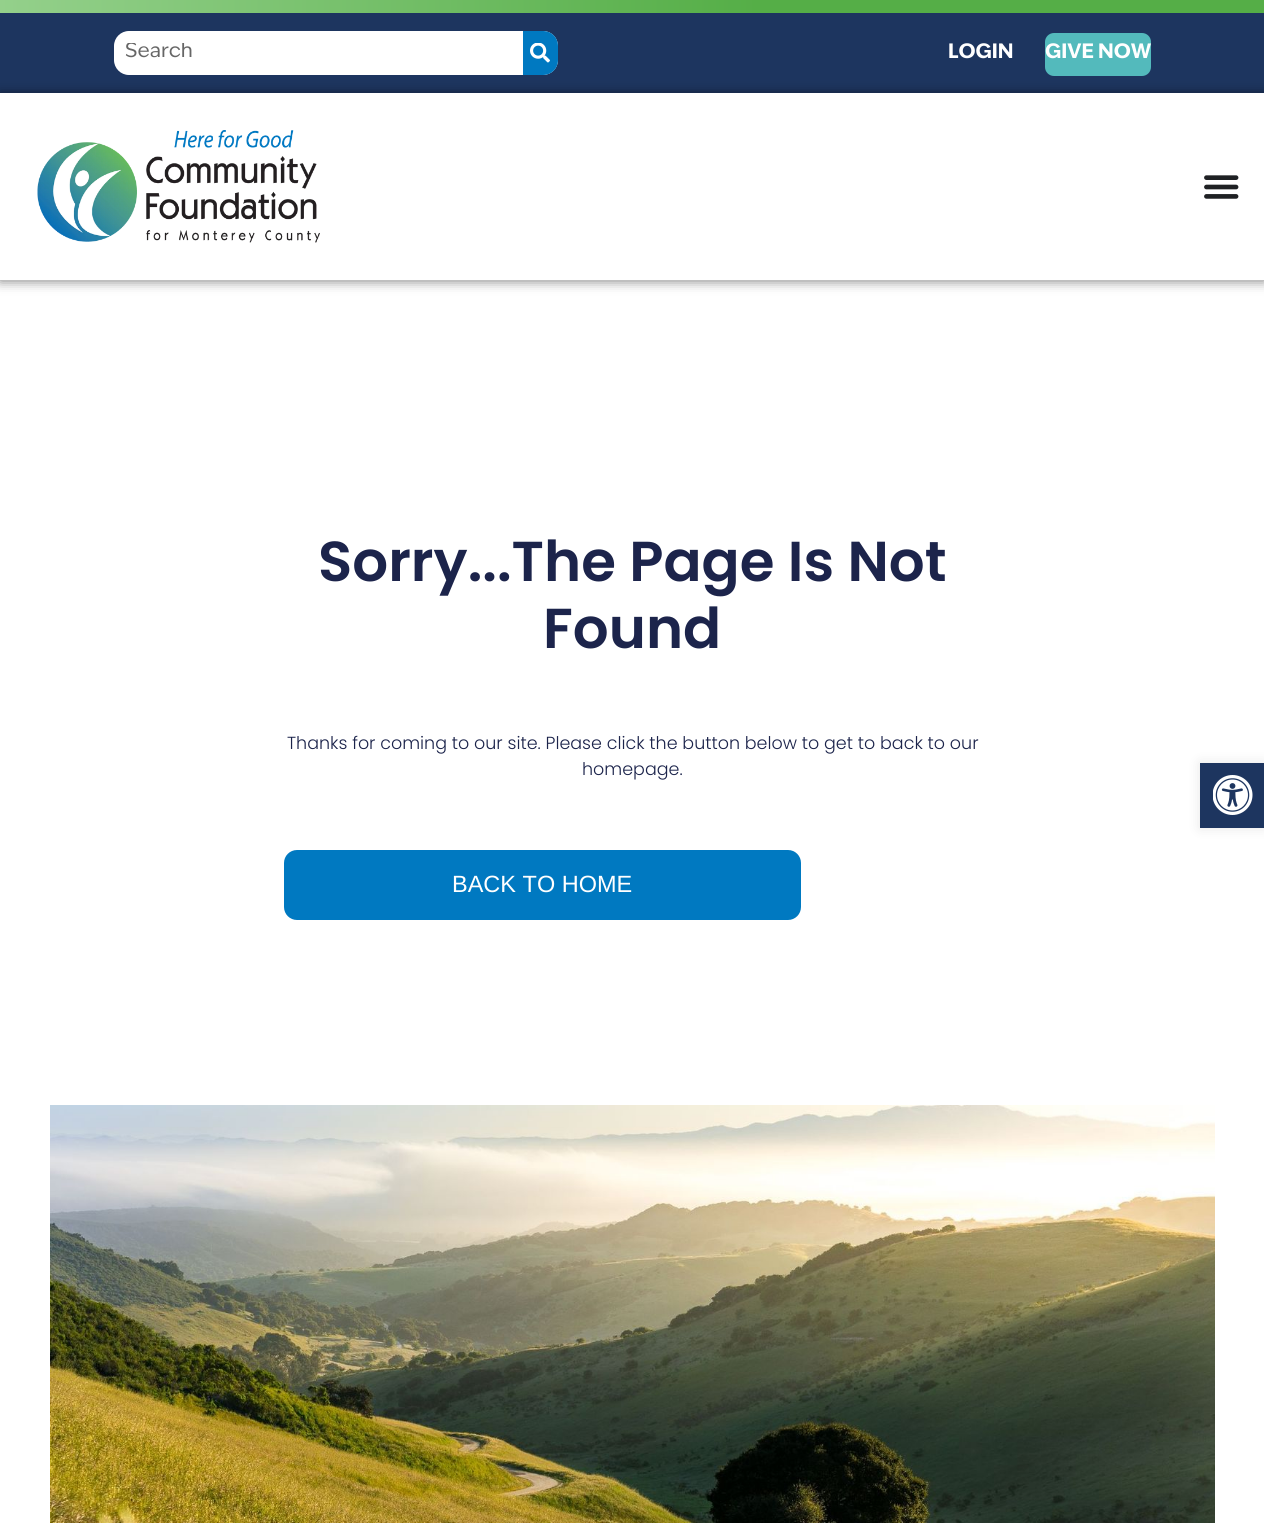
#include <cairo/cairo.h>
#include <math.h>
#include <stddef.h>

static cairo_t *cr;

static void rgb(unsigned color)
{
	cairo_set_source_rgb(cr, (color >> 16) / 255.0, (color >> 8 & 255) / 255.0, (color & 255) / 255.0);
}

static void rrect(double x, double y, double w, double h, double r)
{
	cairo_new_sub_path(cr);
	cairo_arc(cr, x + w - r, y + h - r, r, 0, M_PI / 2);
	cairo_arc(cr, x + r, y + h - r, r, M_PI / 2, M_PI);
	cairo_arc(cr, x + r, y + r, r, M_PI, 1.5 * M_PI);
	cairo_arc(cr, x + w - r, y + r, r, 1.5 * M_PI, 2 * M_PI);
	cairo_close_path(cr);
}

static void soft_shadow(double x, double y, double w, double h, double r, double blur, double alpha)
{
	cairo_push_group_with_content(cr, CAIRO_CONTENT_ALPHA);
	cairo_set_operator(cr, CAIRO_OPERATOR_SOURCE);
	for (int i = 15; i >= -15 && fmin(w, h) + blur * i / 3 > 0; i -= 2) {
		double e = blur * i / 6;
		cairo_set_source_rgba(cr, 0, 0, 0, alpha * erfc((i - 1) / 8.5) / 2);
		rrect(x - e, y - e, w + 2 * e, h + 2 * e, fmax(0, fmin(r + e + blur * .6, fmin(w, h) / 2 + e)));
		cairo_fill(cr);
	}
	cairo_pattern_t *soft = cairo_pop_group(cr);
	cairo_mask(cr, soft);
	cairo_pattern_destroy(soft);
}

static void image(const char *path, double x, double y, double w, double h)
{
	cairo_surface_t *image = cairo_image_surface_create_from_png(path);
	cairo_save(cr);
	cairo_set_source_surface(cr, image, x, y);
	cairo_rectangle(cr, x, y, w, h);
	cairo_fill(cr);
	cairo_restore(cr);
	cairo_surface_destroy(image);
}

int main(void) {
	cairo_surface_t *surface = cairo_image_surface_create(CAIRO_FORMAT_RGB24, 1264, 1523);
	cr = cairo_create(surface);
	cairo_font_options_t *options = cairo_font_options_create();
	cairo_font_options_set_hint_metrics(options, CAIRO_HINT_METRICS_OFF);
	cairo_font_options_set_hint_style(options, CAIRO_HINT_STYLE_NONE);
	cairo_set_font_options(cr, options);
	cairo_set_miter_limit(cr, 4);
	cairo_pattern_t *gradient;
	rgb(0xffffff);
	cairo_paint(cr);
	gradient = cairo_pattern_create_linear(0, 6.3, 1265, 6.2);
	cairo_pattern_add_color_stop_rgba(gradient, 0, 0.58, 0.816, 0.545, 1);
	cairo_pattern_add_color_stop_rgba(gradient, 0.6, 0.333, 0.682, 0.278, 1);
	cairo_set_source(cr, gradient);
	cairo_pattern_destroy(gradient);
	cairo_rectangle(cr, 0, 0, 1264, 13);
	cairo_fill(cr);
	rgb(0x1d355f);
	cairo_rectangle(cr, 0, 13, 1264, 80);
	cairo_fill(cr);
	rgb(0xffffff);
	rrect(114, 31, 444, 44, 15);
	cairo_fill(cr);
	rgb(0x0079c1);
	cairo_new_path(cr);
	cairo_move_to(cr, 523, 31);
	cairo_line_to(cr, 543, 31);
	cairo_curve_to(cr, 551.5, 31, 558, 37.5, 558, 46);
	cairo_line_to(cr, 558, 60);
	cairo_curve_to(cr, 558, 68.5, 551.5, 75, 543, 75);
	cairo_line_to(cr, 523, 75);
	cairo_close_path(cr);
	cairo_fill(cr);
	image("img/1.png", 530, 43, 20, 20);
	rgb(0x53babc);
	rrect(1045, 33, 106, 43, 9);
	cairo_fill(cr);
	cairo_save(cr);
	cairo_set_fill_rule(cr, CAIRO_FILL_RULE_EVEN_ODD);
	cairo_new_path(cr);
	cairo_move_to(cr, 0, 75);
	cairo_line_to(cr, 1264, 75);
	cairo_line_to(cr, 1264, 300);
	cairo_line_to(cr, 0, 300);
	cairo_close_path(cr);
	cairo_move_to(cr, 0, 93);
	cairo_line_to(cr, 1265, 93);
	cairo_line_to(cr, 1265, 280);
	cairo_line_to(cr, 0, 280);
	cairo_close_path(cr);
	cairo_clip(cr);
	rgb(0x000000);
	soft_shadow(0, 94, 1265, 187, 0, 6, 0.5);
	cairo_restore(cr);
	image("img/2.png", 37, 130, 283, 113);
	image("img/3.png", 1204, 175, 35, 24);
	rgb(0x0079c1);
	rrect(284, 850, 517, 70, 13);
	cairo_fill(cr);
	image("img/4.png", 50, 1105, 1165, 418);
	rgb(0x000000);
	soft_shadow(1200, 763, 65, 65, 0, 6, 0.1);
	rgb(0x1d355f);
	cairo_rectangle(cr, 1200, 763, 64, 65);
	cairo_fill(cr);
	image("img/5.png", 1213, 775, 40, 40);
	cairo_save(cr);
	cairo_rectangle(cr, 125, 43, 368, 20);
	cairo_clip(cr);
	cairo_select_font_face(cr, "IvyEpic", CAIRO_FONT_SLANT_NORMAL, CAIRO_FONT_WEIGHT_NORMAL);
	cairo_set_font_size(cr, 20);
	rgb(0x666666);
	cairo_move_to(cr, 125, 57);
	cairo_show_text(cr, "Search");
	cairo_restore(cr);
	cairo_select_font_face(cr, "IvyEpic", CAIRO_FONT_SLANT_NORMAL, CAIRO_FONT_WEIGHT_BOLD);
	cairo_set_font_size(cr, 20);
	rgb(0xffffff);
	cairo_move_to(cr, 948, 58);
	cairo_show_text(cr, "LOGIN");
	cairo_move_to(cr, 1045, 58);
	cairo_show_text(cr, "GIVE NOW");
	cairo_select_font_face(cr, "Poppins SemiBold", CAIRO_FONT_SLANT_NORMAL, CAIRO_FONT_WEIGHT_NORMAL);
	cairo_set_font_size(cr, 56.25);
	rgb(0x1c244b);
	cairo_move_to(cr, 318, 581);
	cairo_show_text(cr, "Sorry...The Page Is Not");
	cairo_move_to(cr, 543, 648);
	cairo_show_text(cr, "Found");
	cairo_select_font_face(cr, "Poppins Light", CAIRO_FONT_SLANT_NORMAL, CAIRO_FONT_WEIGHT_NORMAL);
	cairo_set_font_size(cr, 17.5);
	cairo_move_to(cr, 287, 749);
	cairo_show_text(cr, "Thanks for coming to our site. Please click the button below to get to back to our");
	cairo_move_to(cr, 582, 775);
	cairo_show_text(cr, "homepage.");
	cairo_select_font_face(cr, "Liberation Sans", CAIRO_FONT_SLANT_NORMAL, CAIRO_FONT_WEIGHT_NORMAL);
	cairo_set_font_size(cr, 23.5);
	rgb(0xffffff);
	cairo_move_to(cr, 452, 892);
	cairo_show_text(cr, "BACK TO HOME");
	cairo_surface_write_to_png(surface, "page.png");
	cairo_font_options_destroy(options);
	cairo_destroy(cr);
	cairo_surface_destroy(surface);
	return 0;
}
